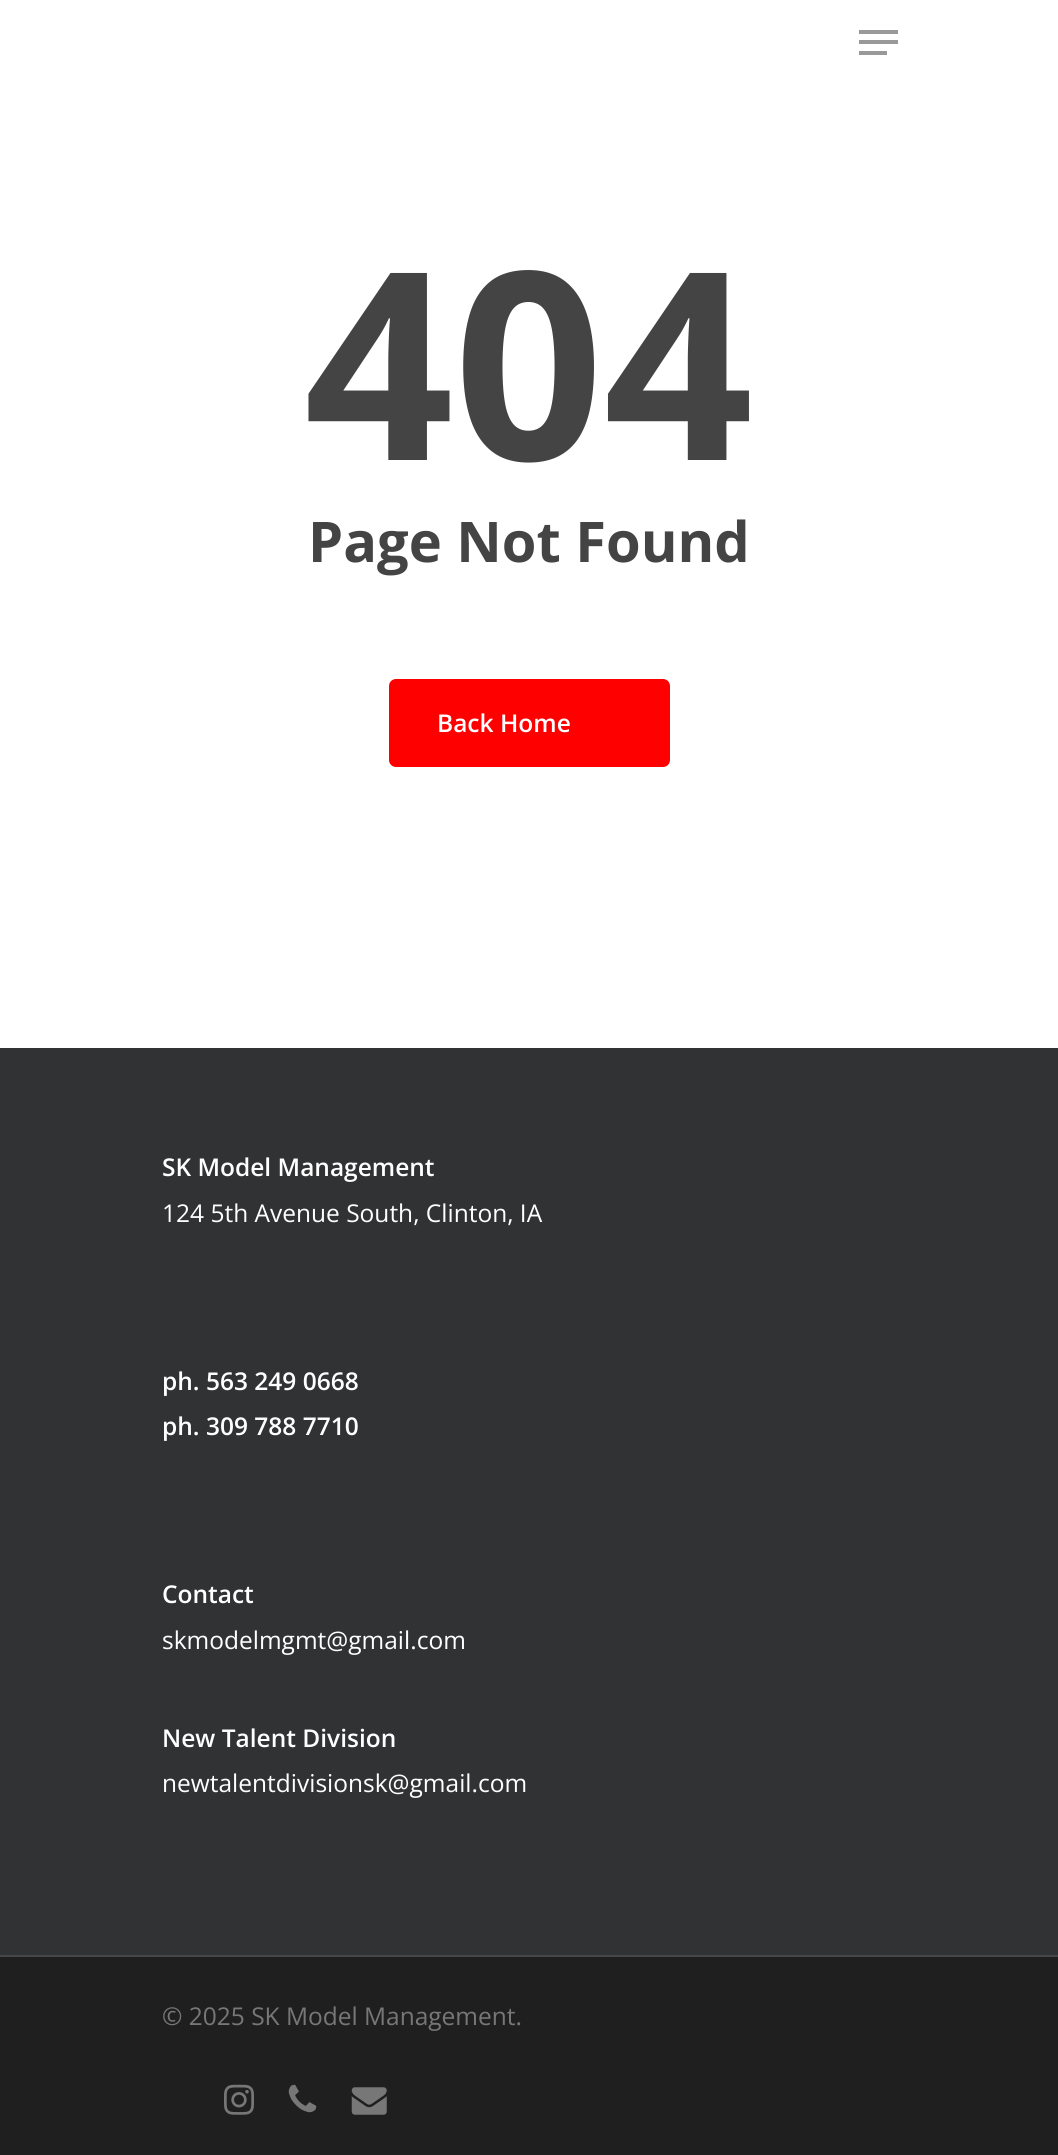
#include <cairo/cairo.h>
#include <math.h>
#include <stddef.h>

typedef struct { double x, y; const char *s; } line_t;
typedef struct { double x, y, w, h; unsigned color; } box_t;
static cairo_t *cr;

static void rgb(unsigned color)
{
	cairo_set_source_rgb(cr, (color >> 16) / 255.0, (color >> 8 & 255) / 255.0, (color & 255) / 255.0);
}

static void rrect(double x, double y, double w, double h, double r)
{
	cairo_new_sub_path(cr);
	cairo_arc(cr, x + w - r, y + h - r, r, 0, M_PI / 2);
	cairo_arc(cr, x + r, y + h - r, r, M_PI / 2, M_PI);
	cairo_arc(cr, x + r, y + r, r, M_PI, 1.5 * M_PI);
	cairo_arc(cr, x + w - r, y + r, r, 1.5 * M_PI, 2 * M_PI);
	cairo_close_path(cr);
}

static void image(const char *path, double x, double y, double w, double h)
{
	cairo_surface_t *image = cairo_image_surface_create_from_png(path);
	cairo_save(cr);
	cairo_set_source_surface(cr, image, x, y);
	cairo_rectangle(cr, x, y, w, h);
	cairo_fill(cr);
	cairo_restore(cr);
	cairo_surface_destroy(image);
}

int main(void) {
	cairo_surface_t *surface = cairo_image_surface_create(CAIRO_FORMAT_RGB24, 1058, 2155);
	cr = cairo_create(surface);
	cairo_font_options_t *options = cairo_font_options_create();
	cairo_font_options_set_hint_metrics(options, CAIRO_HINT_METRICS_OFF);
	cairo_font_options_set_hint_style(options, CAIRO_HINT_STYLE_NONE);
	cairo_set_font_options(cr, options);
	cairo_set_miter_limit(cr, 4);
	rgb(0xffffff);
	cairo_paint(cr);
	{
		static const box_t items[] = {
			{859, 30, 39, 4, 0x999999},
			{859, 51, 28, 4, 0x999999},
			{859, 40, 39, 4, 0x999999},
		};
		for (size_t i = 0; i < sizeof items / sizeof *items; i++) {
			rgb(items[i].color);
			cairo_rectangle(cr, items[i].x, items[i].y, items[i].w, items[i].h);
			cairo_fill(cr);
		}
	}
	rgb(0xff0000);
	rrect(389, 679, 281, 88, 7);
	cairo_fill(cr);
	{
		static const box_t items[] = {
			{0, 1048, 1058, 907, 0x313233},
			{0, 1957, 1058, 198, 0x1f1f1f},
			{0, 1955, 1058, 2, 0x474747},
		};
		for (size_t i = 0; i < sizeof items / sizeof *items; i++) {
			rgb(items[i].color);
			cairo_rectangle(cr, items[i].x, items[i].y, items[i].w, items[i].h);
			cairo_fill(cr);
		}
	}
	image("img/1.png", 224, 2084, 30, 31);
	image("img/2.png", 288, 2084, 29, 29);
	image("img/3.png", 351, 2087, 36, 28);
	cairo_select_font_face(cr, "Open Sans", CAIRO_FONT_SLANT_NORMAL, CAIRO_FONT_WEIGHT_BOLD);
	cairo_set_font_size(cr, 262);
	rgb(0x444444);
	cairo_move_to(cr, 304, 460);
	cairo_show_text(cr, "404");
	cairo_set_font_size(cr, 56);
	cairo_move_to(cr, 308, 562);
	cairo_show_text(cr, "Page Not Found");
	cairo_select_font_face(cr, "Open Sans SemiBold", CAIRO_FONT_SLANT_NORMAL, CAIRO_FONT_WEIGHT_NORMAL);
	cairo_set_font_size(cr, 24.5);
	rgb(0xffffff);
	cairo_move_to(cr, 437, 732);
	cairo_show_text(cr, "Back Home");
	cairo_move_to(cr, 162, 1176);
	cairo_show_text(cr, "SK Model Management");
	cairo_select_font_face(cr, "Open Sans", CAIRO_FONT_SLANT_NORMAL, CAIRO_FONT_WEIGHT_NORMAL);
	cairo_move_to(cr, 162, 1222);
	cairo_show_text(cr, "124 5th Avenue South, Clinton, IA");
	cairo_select_font_face(cr, "Open Sans SemiBold", CAIRO_FONT_SLANT_NORMAL, CAIRO_FONT_WEIGHT_NORMAL);
	{
		static const line_t items[] = {
			{162, 1390, "ph. 563 249 0668"},
			{162, 1435, "ph. 309 788 7710"},
			{162, 1603, "Contact"},
		};
		for (size_t i = 0; i < sizeof items / sizeof *items; i++) {
			cairo_move_to(cr, items[i].x, items[i].y);
			cairo_show_text(cr, items[i].s);
		}
	}
	cairo_select_font_face(cr, "Open Sans", CAIRO_FONT_SLANT_NORMAL, CAIRO_FONT_WEIGHT_NORMAL);
	cairo_move_to(cr, 162, 1649);
	cairo_show_text(cr, "skmodelmgmt@gmail.com");
	cairo_select_font_face(cr, "Open Sans SemiBold", CAIRO_FONT_SLANT_NORMAL, CAIRO_FONT_WEIGHT_NORMAL);
	cairo_move_to(cr, 162, 1747);
	cairo_show_text(cr, "New Talent Division");
	cairo_select_font_face(cr, "Open Sans", CAIRO_FONT_SLANT_NORMAL, CAIRO_FONT_WEIGHT_NORMAL);
	cairo_move_to(cr, 162, 1792);
	cairo_show_text(cr, "newtalentdivisionsk@gmail.com");
	rgb(0x777777);
	cairo_move_to(cr, 162, 2025);
	cairo_show_text(cr, "© 2025 SK Model Management.");
	cairo_surface_write_to_png(surface, "page.png");
	cairo_font_options_destroy(options);
	cairo_destroy(cr);
	cairo_surface_destroy(surface);
	return 0;
}
